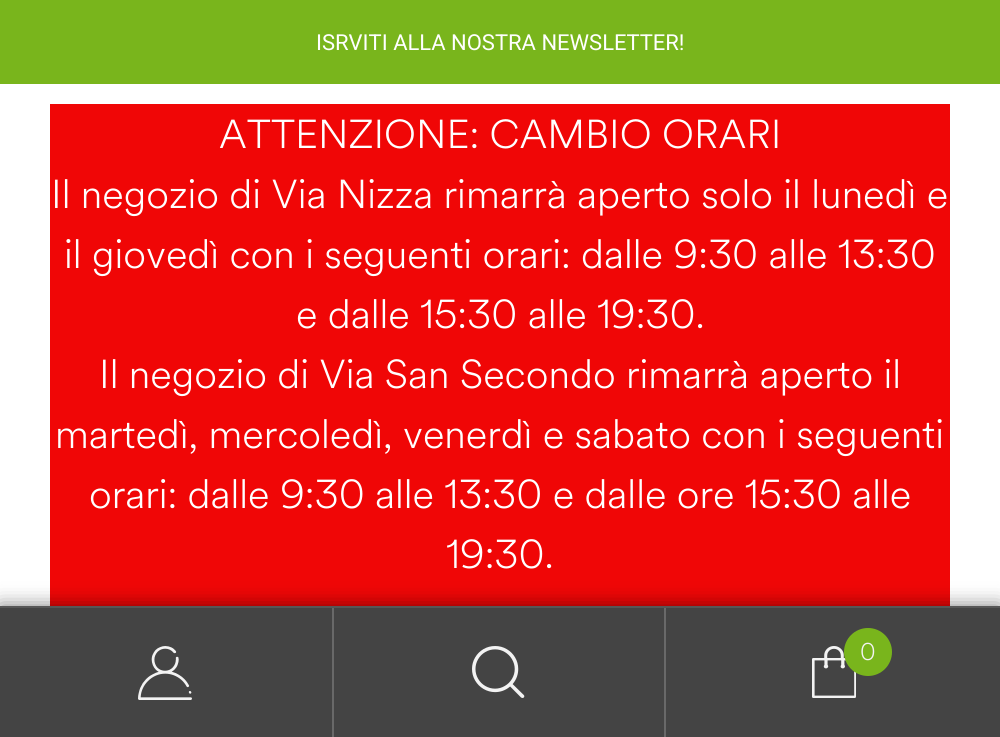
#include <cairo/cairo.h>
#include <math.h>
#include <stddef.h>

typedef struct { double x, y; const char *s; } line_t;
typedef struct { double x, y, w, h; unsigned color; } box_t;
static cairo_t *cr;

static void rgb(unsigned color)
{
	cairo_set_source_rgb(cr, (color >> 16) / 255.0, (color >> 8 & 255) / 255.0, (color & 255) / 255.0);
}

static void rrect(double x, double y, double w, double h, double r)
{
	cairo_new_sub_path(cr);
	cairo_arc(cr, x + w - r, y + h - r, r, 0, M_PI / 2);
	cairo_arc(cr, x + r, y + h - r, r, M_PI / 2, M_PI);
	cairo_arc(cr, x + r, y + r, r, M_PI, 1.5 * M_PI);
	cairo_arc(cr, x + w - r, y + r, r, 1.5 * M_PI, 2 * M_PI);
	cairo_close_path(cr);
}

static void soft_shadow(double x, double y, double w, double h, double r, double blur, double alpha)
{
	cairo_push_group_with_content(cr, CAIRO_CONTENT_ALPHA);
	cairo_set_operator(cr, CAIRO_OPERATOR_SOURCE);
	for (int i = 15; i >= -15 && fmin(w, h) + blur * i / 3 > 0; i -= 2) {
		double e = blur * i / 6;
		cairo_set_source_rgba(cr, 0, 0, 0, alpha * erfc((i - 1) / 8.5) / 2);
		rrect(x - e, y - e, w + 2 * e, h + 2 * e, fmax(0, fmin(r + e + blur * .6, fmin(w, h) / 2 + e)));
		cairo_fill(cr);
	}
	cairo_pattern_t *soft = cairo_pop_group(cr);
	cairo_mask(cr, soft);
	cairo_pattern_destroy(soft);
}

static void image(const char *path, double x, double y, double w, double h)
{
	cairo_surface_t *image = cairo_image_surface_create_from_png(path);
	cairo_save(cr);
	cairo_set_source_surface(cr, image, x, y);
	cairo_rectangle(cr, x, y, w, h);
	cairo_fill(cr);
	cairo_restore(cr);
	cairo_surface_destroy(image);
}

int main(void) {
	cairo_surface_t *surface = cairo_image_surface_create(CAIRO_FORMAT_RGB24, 1000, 737);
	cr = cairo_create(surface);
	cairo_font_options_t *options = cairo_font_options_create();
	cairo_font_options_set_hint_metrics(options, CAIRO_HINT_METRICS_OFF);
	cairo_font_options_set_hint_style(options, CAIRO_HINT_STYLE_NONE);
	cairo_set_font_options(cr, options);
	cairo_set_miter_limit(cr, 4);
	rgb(0xffffff);
	cairo_paint(cr);
	rgb(0x79b51c);
	cairo_rectangle(cr, 0, 0, 1000, 84);
	cairo_fill(cr);
	rgb(0xf00606);
	cairo_rectangle(cr, 50, 104, 900, 502);
	cairo_fill(cr);
	rgb(0x000000);
	soft_shadow(0, 606, 1000, 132, 0, 10, 0.5);
	{
		static const box_t items[] = {
			{0, 606, 1000, 2, 0x575757},
			{0, 608, 332, 129, 0x444444},
			{332, 608, 2, 129, 0x696969},
		};
		for (size_t i = 0; i < sizeof items / sizeof *items; i++) {
			rgb(items[i].color);
			cairo_rectangle(cr, items[i].x, items[i].y, items[i].w, items[i].h);
			cairo_fill(cr);
		}
	}
	image("img/1.png", 138, 646, 54, 54);
	rgb(0x444444);
	cairo_rectangle(cr, 334, 608, 330, 129);
	cairo_fill(cr);
	rgb(0x696969);
	cairo_rectangle(cr, 664, 608, 2, 129);
	cairo_fill(cr);
	image("img/2.png", 472, 646, 53, 52);
	rgb(0x444444);
	cairo_rectangle(cr, 666, 608, 334, 129);
	cairo_fill(cr);
	image("img/3.png", 812, 646, 44, 52);
	rgb(0x79b51c);
	cairo_arc(cr, 868, 652, 24, 0, 2 * M_PI);
	cairo_fill(cr);
	cairo_select_font_face(cr, "Roboto", CAIRO_FONT_SLANT_NORMAL, CAIRO_FONT_WEIGHT_NORMAL);
	cairo_set_font_size(cr, 22);
	rgb(0xffffff);
	cairo_move_to(cr, 316, 50);
	cairo_show_text(cr, "ISRVITI ALLA NOSTRA NEWSLETTER!");
	cairo_select_font_face(cr, "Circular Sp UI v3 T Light", CAIRO_FONT_SLANT_NORMAL, CAIRO_FONT_WEIGHT_NORMAL);
	cairo_set_font_size(cr, 40);
	{
		static const line_t items[] = {
			{219, 148, "ATTENZIONE: CAMBIO ORARI"},
			{51, 208, "Il negozio di Via Nizza rimarrà aperto solo il lunedì e"},
			{64, 268, "il giovedì con i seguenti orari: dalle 9:30 alle 13:30"},
			{296, 328, "e dalle 15:30 alle 19:30."},
			{99, 388, "Il negozio di Via San Secondo rimarrà aperto il"},
			{55, 448, "martedì, mercoledì, venerdì e sabato con i seguenti"},
			{89, 508, "orari: dalle 9:30 alle 13:30 e dalle ore 15:30 alle"},
			{446, 568, "19:30."},
		};
		for (size_t i = 0; i < sizeof items / sizeof *items; i++) {
			cairo_move_to(cr, items[i].x, items[i].y);
			cairo_show_text(cr, items[i].s);
		}
	}
	cairo_set_font_size(cr, 24);
	rgb(0xf3f3f3);
	cairo_move_to(cr, 860, 660);
	cairo_show_text(cr, "0");
	cairo_surface_write_to_png(surface, "page.png");
	cairo_font_options_destroy(options);
	cairo_destroy(cr);
	cairo_surface_destroy(surface);
	return 0;
}
